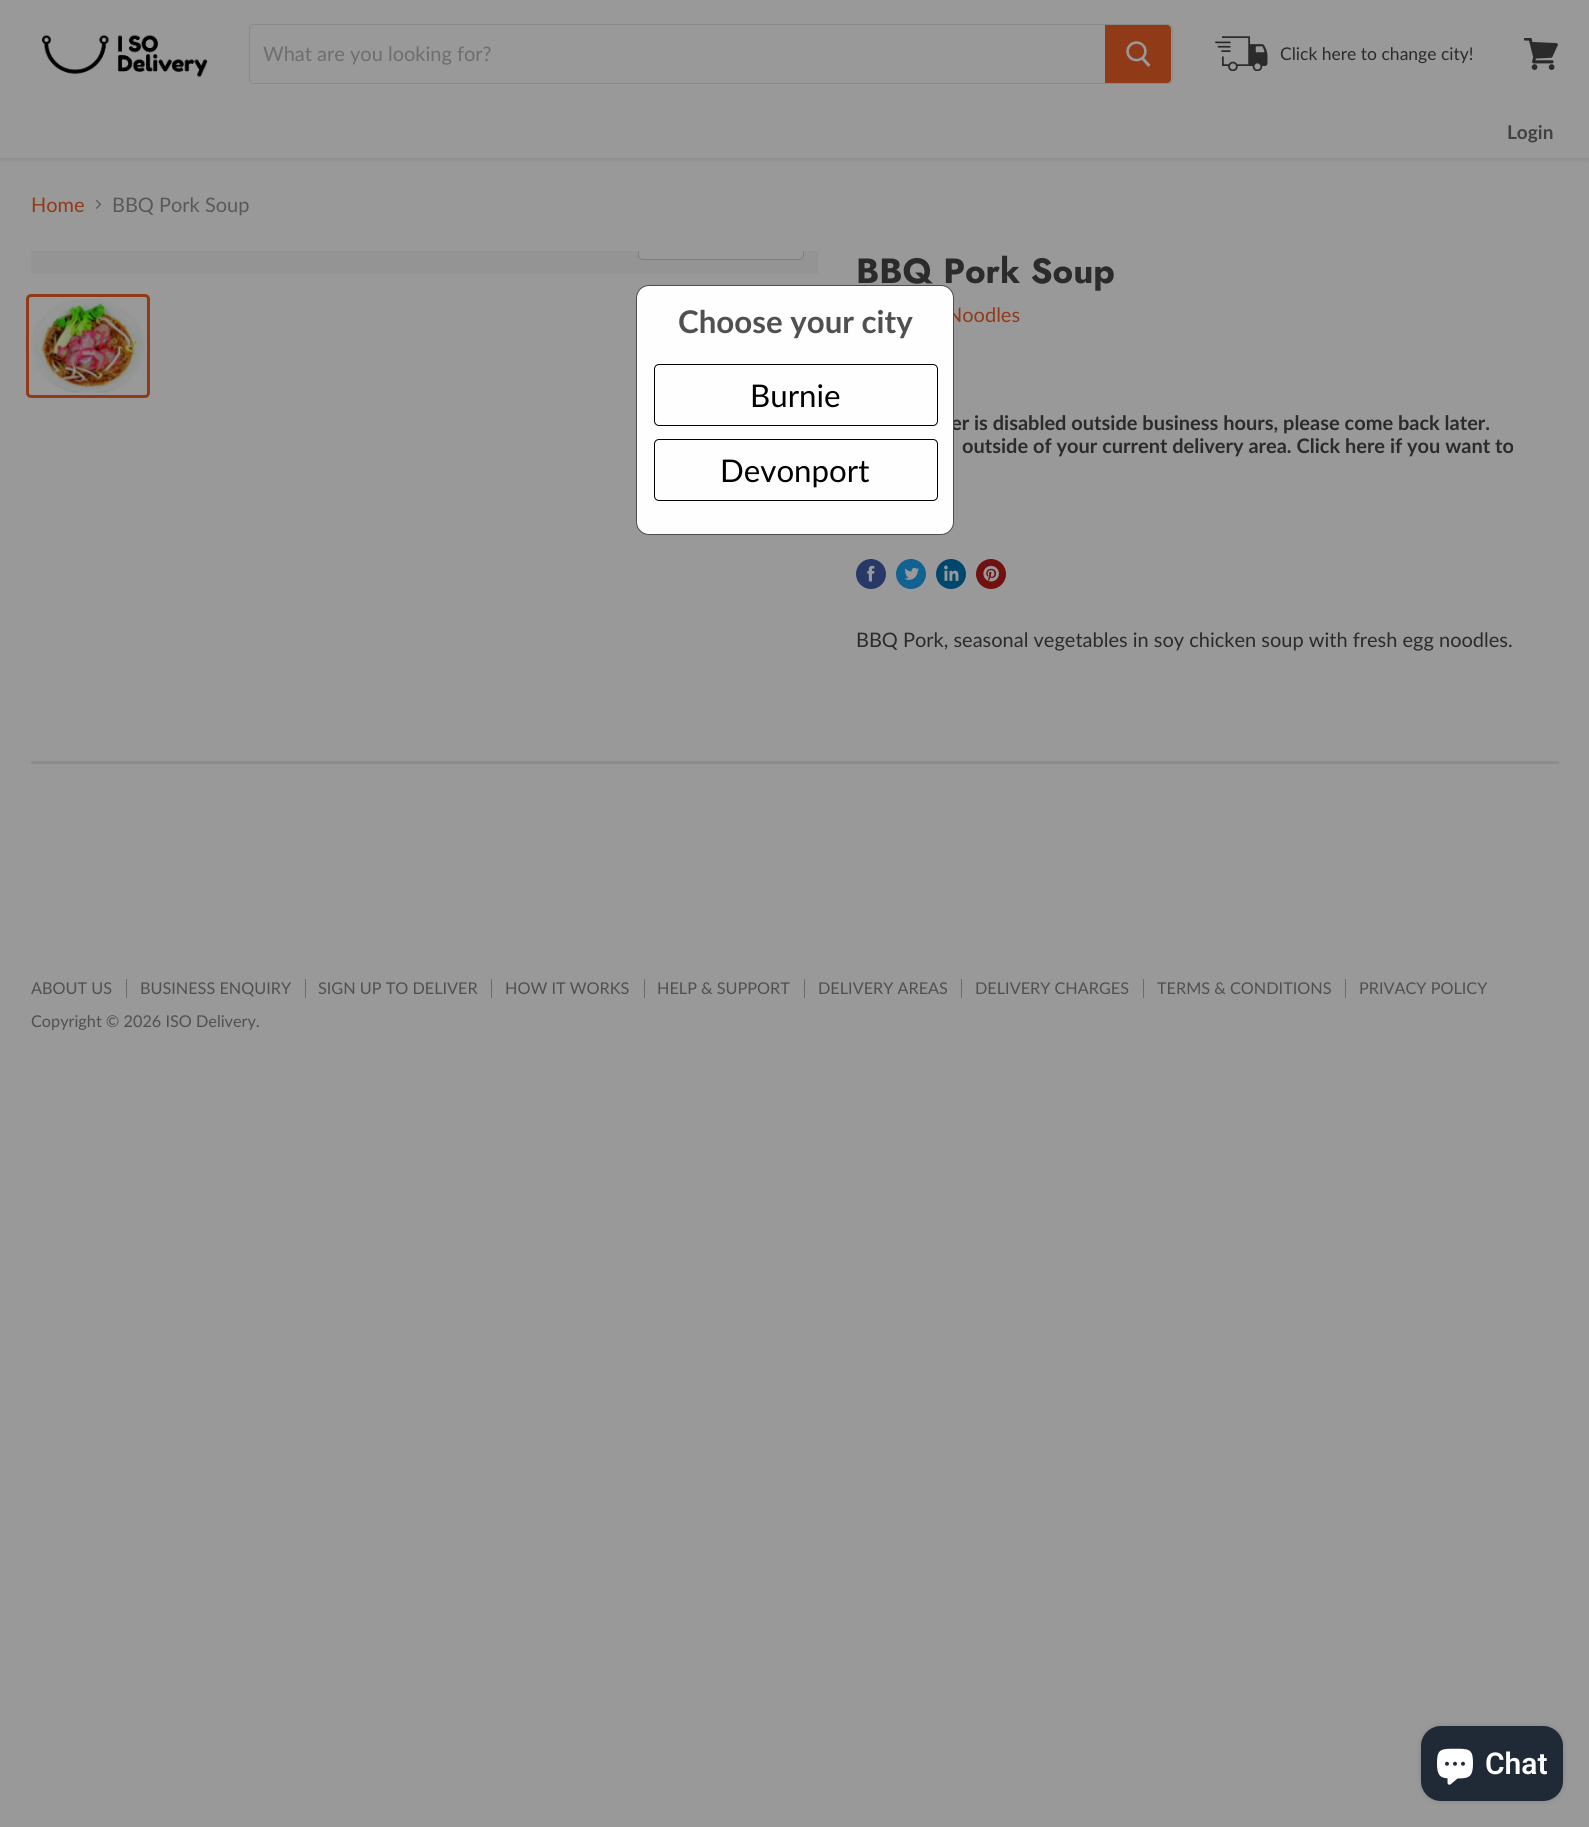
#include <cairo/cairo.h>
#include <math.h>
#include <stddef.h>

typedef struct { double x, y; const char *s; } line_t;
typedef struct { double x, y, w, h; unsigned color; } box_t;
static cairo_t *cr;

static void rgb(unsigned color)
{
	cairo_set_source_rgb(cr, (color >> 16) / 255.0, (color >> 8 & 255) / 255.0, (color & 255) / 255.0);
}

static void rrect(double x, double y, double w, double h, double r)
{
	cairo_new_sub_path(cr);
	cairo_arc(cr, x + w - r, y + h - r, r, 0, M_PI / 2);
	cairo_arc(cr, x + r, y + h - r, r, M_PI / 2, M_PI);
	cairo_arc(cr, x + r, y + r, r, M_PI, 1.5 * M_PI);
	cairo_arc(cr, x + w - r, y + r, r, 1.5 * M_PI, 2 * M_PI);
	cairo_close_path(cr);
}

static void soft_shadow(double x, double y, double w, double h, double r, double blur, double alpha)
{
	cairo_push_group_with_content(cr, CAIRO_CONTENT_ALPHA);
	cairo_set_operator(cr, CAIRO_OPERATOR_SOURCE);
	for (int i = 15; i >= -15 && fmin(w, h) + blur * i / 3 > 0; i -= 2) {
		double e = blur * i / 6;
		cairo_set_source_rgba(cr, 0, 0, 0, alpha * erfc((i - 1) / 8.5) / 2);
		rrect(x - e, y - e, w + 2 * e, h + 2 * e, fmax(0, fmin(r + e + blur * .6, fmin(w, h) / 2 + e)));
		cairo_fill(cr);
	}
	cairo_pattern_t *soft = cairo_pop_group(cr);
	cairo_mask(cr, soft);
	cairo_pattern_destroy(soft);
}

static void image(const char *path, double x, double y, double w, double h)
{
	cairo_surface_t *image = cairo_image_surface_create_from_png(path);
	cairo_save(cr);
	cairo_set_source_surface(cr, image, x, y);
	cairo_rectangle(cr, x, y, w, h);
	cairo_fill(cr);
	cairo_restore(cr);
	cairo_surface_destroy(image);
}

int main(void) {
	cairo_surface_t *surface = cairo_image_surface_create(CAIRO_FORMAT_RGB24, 1589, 1827);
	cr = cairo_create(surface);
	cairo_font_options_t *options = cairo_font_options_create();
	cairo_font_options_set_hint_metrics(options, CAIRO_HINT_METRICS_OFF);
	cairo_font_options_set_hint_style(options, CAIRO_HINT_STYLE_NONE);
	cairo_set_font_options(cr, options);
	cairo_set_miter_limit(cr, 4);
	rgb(0x999999);
	cairo_paint(cr);
	rgb(0x4c4c4c);
	soft_shadow(0, 1, 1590, 158, 0, 2.5, 0.25);
	rgb(0x999999);
	cairo_rectangle(cr, 0, 0, 1589, 158);
	cairo_fill(cr);
	image("img/1.png", 42, 34, 166, 44);
	rrect(249.5, 24.5, 923, 59, 4.5);
	cairo_set_source_rgba(cr, 0.298, 0.298, 0.298, 0.2);
	cairo_set_line_width(cr, 1);
	cairo_stroke(cr);
	rgb(0x999999);
	cairo_new_path(cr);
	cairo_move_to(cr, 254, 25);
	cairo_line_to(cr, 1105, 25);
	cairo_line_to(cr, 1105, 83);
	cairo_line_to(cr, 254, 83);
	cairo_curve_to(cr, 252, 83, 250, 81, 250, 79);
	cairo_line_to(cr, 250, 29);
	cairo_curve_to(cr, 250, 27, 252, 25, 254, 25);
	cairo_close_path(cr);
	cairo_fill(cr);
	rgb(0x913a17);
	cairo_new_path(cr);
	cairo_move_to(cr, 1105.5, 25.5);
	cairo_line_to(cr, 1167, 25.5);
	cairo_curve_to(cr, 1169, 25.5, 1170.5, 27, 1170.5, 29);
	cairo_line_to(cr, 1170.5, 79);
	cairo_curve_to(cr, 1170.5, 81, 1169, 82.5, 1167, 82.5);
	cairo_line_to(cr, 1105.5, 82.5);
	cairo_close_path(cr);
	cairo_fill_preserve(cr);
	cairo_stroke(cr);
	image("img/2.png", 1126, 41, 25, 26);
	image("img/3.png", 1215, 36, 53, 35);
	image("img/4.png", 1524, 38, 34, 32);
	image("img/5.png", 96, 200, 6, 9);
	rgb(0x949494);
	cairo_rectangle(cr, 31, 251, 787, 23);
	cairo_fill(cr);
	cairo_save(cr);
	cairo_rectangle(cr, 31, 251, 787, 23);
	cairo_clip(cr);
	rrect(638.5, 223.5, 165, 36, 4.5);
	rgb(0x7e7e7e);
	cairo_stroke(cr);
	cairo_restore(cr);
	cairo_set_source_rgba(cr, 0.6, 0.6, 0.6, 0.9);
	cairo_new_path(cr);
	cairo_move_to(cr, 639, 251);
	cairo_line_to(cr, 803, 251);
	cairo_line_to(cr, 803, 255);
	cairo_curve_to(cr, 803, 257, 801, 259, 799, 259);
	cairo_line_to(cr, 643, 259);
	cairo_curve_to(cr, 641, 259, 639, 257, 639, 255);
	cairo_close_path(cr);
	cairo_fill(cr);
	rrect(27.5, 295.5, 121, 101, 3.5);
	rgb(0x913a17);
	cairo_set_line_width(cr, 3);
	cairo_stroke(cr);
	image("img/6.png", 31, 299, 114, 94);
	rgb(0x283867);
	cairo_arc(cr, 871, 574, 15, 0, 2 * M_PI);
	cairo_fill(cr);
	image("img/7.png", 867, 565, 8, 17);
	rgb(0x116191);
	cairo_arc(cr, 911, 574, 15, 0, 2 * M_PI);
	cairo_fill(cr);
	image("img/8.png", 904, 567, 15, 13);
	rgb(0x00476d);
	cairo_arc(cr, 951, 574, 15, 0, 2 * M_PI);
	cairo_fill(cr);
	image("img/9.png", 944, 565, 15, 16);
	rgb(0x711111);
	cairo_arc(cr, 991, 574, 15, 0, 2 * M_PI);
	cairo_fill(cr);
	image("img/10.png", 983, 565, 16, 17);
	{
		static const box_t items[] = {
			{31, 761, 1528, 3, 0x8c8c8c},
			{126, 979, 1, 19, 0x6c6c6c},
			{305, 979, 1, 19, 0x6c6c6c},
			{491, 979, 1, 19, 0x6c6c6c},
			{644, 979, 1, 19, 0x6c6c6c},
			{804, 979, 1, 19, 0x6c6c6c},
			{961, 979, 1, 19, 0x6c6c6c},
			{1143, 979, 1, 19, 0x6c6c6c},
			{1345, 979, 1, 19, 0x6c6c6c},
		};
		for (size_t i = 0; i < sizeof items / sizeof *items; i++) {
			rgb(items[i].color);
			cairo_rectangle(cr, items[i].x, items[i].y, items[i].w, items[i].h);
			cairo_fill(cr);
		}
	}
	rgb(0x000000);
	soft_shadow(1421, 1726, 142, 75, 20, 3, 0.15);
	rgb(0x202a36);
	rrect(1421, 1726, 142, 75, 20);
	cairo_fill(cr);
	image("img/11.png", 1437, 1748, 36, 37);
	cairo_select_font_face(cr, "Lato", CAIRO_FONT_SLANT_NORMAL, CAIRO_FONT_WEIGHT_NORMAL);
	cairo_set_font_size(cr, 20);
	rgb(0x6e6e6e);
	cairo_move_to(cr, 263, 61);
	cairo_show_text(cr, "What are you looking for?");
	cairo_set_font_size(cr, 17.5);
	rgb(0x2b2b2b);
	cairo_move_to(cr, 1280, 60);
	cairo_show_text(cr, "Click here to change city!");
	cairo_select_font_face(cr, "Lato", CAIRO_FONT_SLANT_NORMAL, CAIRO_FONT_WEIGHT_BOLD);
	cairo_set_font_size(cr, 19);
	rgb(0x414141);
	cairo_move_to(cr, 1507, 139);
	cairo_show_text(cr, "Login");
	cairo_select_font_face(cr, "Lato", CAIRO_FONT_SLANT_NORMAL, CAIRO_FONT_WEIGHT_NORMAL);
	cairo_set_font_size(cr, 20);
	rgb(0x913a17);
	cairo_move_to(cr, 31, 212);
	cairo_show_text(cr, "Home");
	rgb(0x595959);
	cairo_move_to(cr, 112, 212);
	cairo_show_text(cr, "BBQ Pork Soup");
	cairo_select_font_face(cr, "Jost", CAIRO_FONT_SLANT_NORMAL, CAIRO_FONT_WEIGHT_BOLD);
	cairo_set_font_size(cr, 35);
	rgb(0x2b2b2b);
	cairo_move_to(cr, 856, 283);
	cairo_show_text(cr, "BBQ Pork Soup");
	cairo_select_font_face(cr, "Lato", CAIRO_FONT_SLANT_NORMAL, CAIRO_FONT_WEIGHT_NORMAL);
	cairo_set_font_size(cr, 20);
	rgb(0x913a17);
	cairo_move_to(cr, 947, 322);
	cairo_show_text(cr, "Noodles");
	cairo_select_font_face(cr, "Lato", CAIRO_FONT_SLANT_NORMAL, CAIRO_FONT_WEIGHT_BOLD);
	rgb(0x2b2b2b);
	cairo_move_to(cr, 951, 430);
	cairo_show_text(cr, "er is disabled outside business hours, please come back later.");
	cairo_move_to(cr, 962, 453);
	cairo_show_text(cr, "outside of your current delivery area. Click here if you want to");
	cairo_select_font_face(cr, "Lato", CAIRO_FONT_SLANT_NORMAL, CAIRO_FONT_WEIGHT_NORMAL);
	cairo_move_to(cr, 856, 647);
	cairo_show_text(cr, "BBQ Pork, seasonal vegetables in soy chicken soup with fresh egg noodles.");
	rgb(0xfefefe);
	rrect(636.5, 285.5, 317, 249, 12.5);
	cairo_fill_preserve(cr);
	rgb(0x4d4d4d);
	cairo_set_line_width(cr, 1);
	cairo_stroke(cr);
	cairo_select_font_face(cr, "Lato", CAIRO_FONT_SLANT_NORMAL, CAIRO_FONT_WEIGHT_BOLD);
	cairo_set_font_size(cr, 31.25);
	rgb(0x505050);
	cairo_move_to(cr, 678, 333);
	cairo_show_text(cr, "Choose your city");
	rrect(654.5, 364.5, 283, 61, 4.5);
	rgb(0x000000);
	cairo_stroke(cr);
	cairo_select_font_face(cr, "Lato", CAIRO_FONT_SLANT_NORMAL, CAIRO_FONT_WEIGHT_NORMAL);
	cairo_move_to(cr, 750, 407);
	cairo_show_text(cr, "Burnie");
	rrect(654.5, 439.5, 283, 61, 4.5);
	cairo_stroke(cr);
	cairo_move_to(cr, 720, 482);
	cairo_show_text(cr, "Devonport");
	cairo_set_font_size(cr, 16.25);
	rgb(0x505050);
	{
		static const line_t items[] = {
			{31, 994, "ABOUT US"},
			{140, 994, "BUSINESS ENQUIRY"},
			{318, 994, "SIGN UP TO DELIVER"},
			{505, 994, "HOW IT WORKS"},
			{657, 994, "HELP & SUPPORT"},
			{818, 994, "DELIVERY AREAS"},
			{975, 994, "DELIVERY CHARGES"},
			{1157, 994, "TERMS & CONDITIONS"},
			{1359, 994, "PRIVACY POLICY"},
			{31, 1027, "Copyright © 2026 ISO Delivery."},
		};
		for (size_t i = 0; i < sizeof items / sizeof *items; i++) {
			cairo_move_to(cr, items[i].x, items[i].y);
			cairo_show_text(cr, items[i].s);
		}
	}
	cairo_select_font_face(cr, "Roboto SemiBold", CAIRO_FONT_SLANT_NORMAL, CAIRO_FONT_WEIGHT_NORMAL);
	cairo_set_font_size(cr, 30);
	rgb(0xffffff);
	cairo_move_to(cr, 1485, 1774);
	cairo_show_text(cr, "Chat");
	cairo_surface_write_to_png(surface, "page.png");
	cairo_font_options_destroy(options);
	cairo_destroy(cr);
	cairo_surface_destroy(surface);
	return 0;
}
